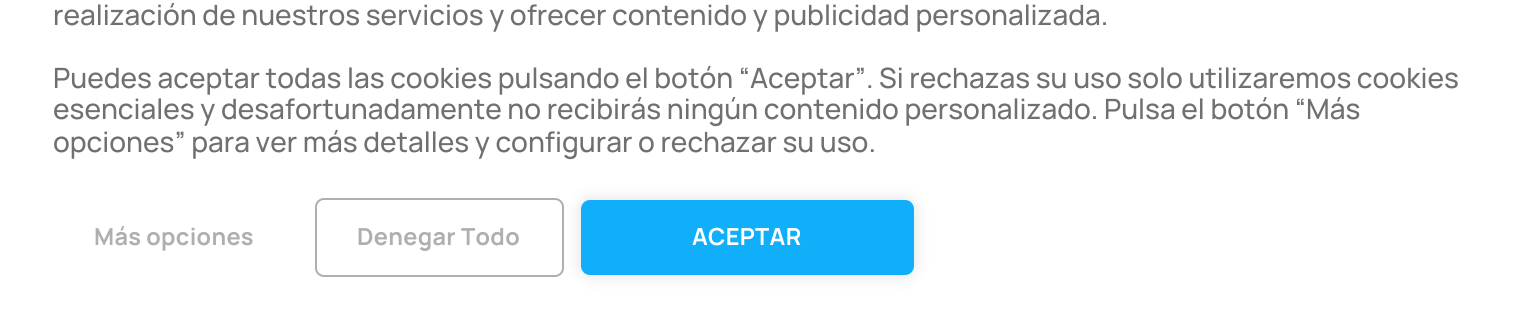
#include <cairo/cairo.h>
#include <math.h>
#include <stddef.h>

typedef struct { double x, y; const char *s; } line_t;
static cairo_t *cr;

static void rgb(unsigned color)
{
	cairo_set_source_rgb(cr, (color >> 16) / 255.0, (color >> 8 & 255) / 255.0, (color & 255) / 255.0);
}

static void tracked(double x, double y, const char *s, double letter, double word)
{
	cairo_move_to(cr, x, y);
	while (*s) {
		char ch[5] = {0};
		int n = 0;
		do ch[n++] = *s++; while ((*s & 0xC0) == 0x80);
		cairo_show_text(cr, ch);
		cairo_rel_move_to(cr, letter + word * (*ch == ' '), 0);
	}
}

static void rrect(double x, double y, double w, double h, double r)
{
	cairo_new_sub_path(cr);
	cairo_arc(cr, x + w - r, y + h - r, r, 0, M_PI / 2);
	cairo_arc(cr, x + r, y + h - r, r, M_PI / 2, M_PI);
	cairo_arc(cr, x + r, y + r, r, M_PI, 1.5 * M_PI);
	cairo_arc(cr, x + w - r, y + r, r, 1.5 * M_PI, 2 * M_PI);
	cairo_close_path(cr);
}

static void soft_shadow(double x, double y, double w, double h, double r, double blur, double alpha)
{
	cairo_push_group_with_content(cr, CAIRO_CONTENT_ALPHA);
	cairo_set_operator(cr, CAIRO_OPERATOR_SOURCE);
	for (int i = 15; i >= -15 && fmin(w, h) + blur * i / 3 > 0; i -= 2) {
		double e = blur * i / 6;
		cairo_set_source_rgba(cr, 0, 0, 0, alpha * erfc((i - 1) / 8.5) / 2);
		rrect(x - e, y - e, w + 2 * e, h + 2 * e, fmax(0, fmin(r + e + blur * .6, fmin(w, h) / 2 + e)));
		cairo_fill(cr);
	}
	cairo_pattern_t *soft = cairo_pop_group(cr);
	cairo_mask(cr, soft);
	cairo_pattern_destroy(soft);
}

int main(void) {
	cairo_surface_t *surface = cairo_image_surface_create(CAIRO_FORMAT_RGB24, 1529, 319);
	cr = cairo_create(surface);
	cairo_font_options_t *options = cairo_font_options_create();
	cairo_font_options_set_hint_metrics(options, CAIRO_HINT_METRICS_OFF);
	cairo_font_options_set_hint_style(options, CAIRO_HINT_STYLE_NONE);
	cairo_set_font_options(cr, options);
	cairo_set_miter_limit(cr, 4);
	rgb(0xffffff);
	cairo_paint(cr);
	rrect(316, 199, 247, 77, 8);
	rgb(0xafafaf);
	cairo_stroke(cr);
	rgb(0x000000);
	soft_shadow(581, 200, 333, 75, 9, 9, 0.12);
	rgb(0x11aefa);
	rrect(581, 200, 333, 75, 9);
	cairo_fill(cr);
	cairo_select_font_face(cr, "Manrope Medium", CAIRO_FONT_SLANT_NORMAL, CAIRO_FONT_WEIGHT_NORMAL);
	cairo_set_font_size(cr, 28);
	rgb(0x707070);
	{
		static const line_t items[] = {
			{53, 25, "realización de nuestros servicios y ofrecer contenido y publicidad personalizada."},
			{53, 88, "Puedes aceptar todas las cookies pulsando el botón “Aceptar”. Si rechazas su uso solo utilizaremos cookies"},
			{53, 119, "esenciales y desafortunadamente no recibirás ningún contenido personalizado. Pulsa el botón “Más"},
			{53, 152, "opciones” para ver más detalles y configurar o rechazar su uso."},
		};
		for (size_t i = 0; i < sizeof items / sizeof *items; i++) {
			cairo_move_to(cr, items[i].x, items[i].y);
			cairo_show_text(cr, items[i].s);
		}
	}
	cairo_select_font_face(cr, "Manrope", CAIRO_FONT_SLANT_NORMAL, CAIRO_FONT_WEIGHT_BOLD);
	cairo_set_font_size(cr, 23.5);
	rgb(0xafafaf);
	tracked(94, 245, "Más opciones", 0.3, 0);
	tracked(357, 245, "Denegar Todo", 0.3, 0);
	rgb(0xffffff);
	tracked(692, 245, "ACEPTAR", 0.3, 0);
	cairo_surface_write_to_png(surface, "page.png");
	cairo_font_options_destroy(options);
	cairo_destroy(cr);
	cairo_surface_destroy(surface);
	return 0;
}
